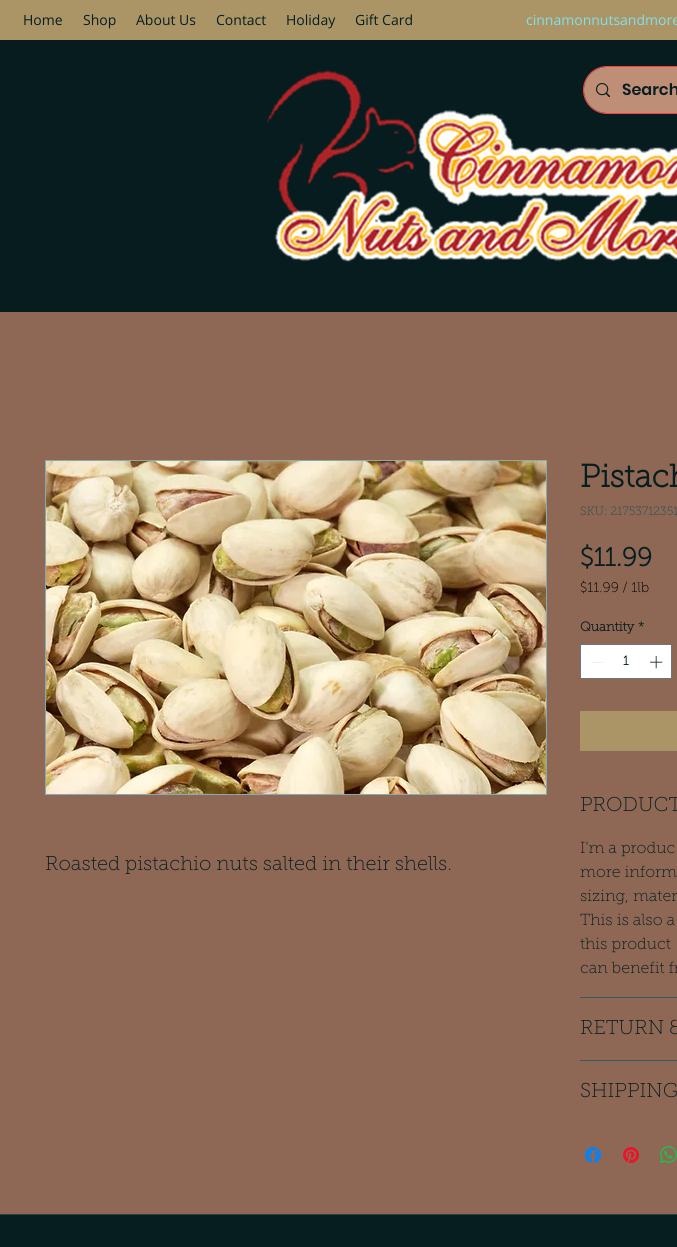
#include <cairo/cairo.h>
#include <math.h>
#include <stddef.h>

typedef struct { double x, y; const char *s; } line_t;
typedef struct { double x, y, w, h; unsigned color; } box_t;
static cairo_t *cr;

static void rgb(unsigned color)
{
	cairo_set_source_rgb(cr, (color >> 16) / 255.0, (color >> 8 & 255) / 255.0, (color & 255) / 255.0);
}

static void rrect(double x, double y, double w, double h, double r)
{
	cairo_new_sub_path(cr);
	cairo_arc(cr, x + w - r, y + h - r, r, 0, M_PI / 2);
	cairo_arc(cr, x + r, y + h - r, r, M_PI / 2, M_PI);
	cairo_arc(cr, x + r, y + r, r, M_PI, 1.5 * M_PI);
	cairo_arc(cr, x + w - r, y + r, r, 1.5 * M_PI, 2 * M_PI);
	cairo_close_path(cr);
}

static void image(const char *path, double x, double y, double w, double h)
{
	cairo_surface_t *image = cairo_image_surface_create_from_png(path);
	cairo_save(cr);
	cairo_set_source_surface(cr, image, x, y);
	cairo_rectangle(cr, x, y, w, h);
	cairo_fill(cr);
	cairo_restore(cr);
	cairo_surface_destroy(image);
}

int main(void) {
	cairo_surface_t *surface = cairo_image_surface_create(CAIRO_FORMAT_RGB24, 677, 1247);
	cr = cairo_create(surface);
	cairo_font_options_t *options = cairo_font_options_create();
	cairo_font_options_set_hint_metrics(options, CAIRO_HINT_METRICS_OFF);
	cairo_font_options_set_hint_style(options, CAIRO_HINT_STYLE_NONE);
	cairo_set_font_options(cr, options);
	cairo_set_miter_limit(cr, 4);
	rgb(0x8f6755);
	cairo_paint(cr);
	rgb(0xab9567);
	cairo_rectangle(cr, 0, 0, 677, 40);
	cairo_fill(cr);
	rgb(0x061c1e);
	cairo_rectangle(cr, 0, 40, 677, 272);
	cairo_fill(cr);
	image("img/1.png", 266, 70, 411, 192);
	rrect(583.5, 66.5, 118, 47, 23.5);
	rgb(0xff4040);
	cairo_set_line_width(cr, 1);
	cairo_stroke(cr);
	rgb(0xbe8e77);
	rrect(584, 67, 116, 46, 23);
	cairo_fill(cr);
	image("img/2.png", 596, 83, 14, 14);
	cairo_rectangle(cr, 45.5, 460.5, 501, 334);
	rgb(0x82acb1);
	cairo_stroke(cr);
	image("img/3.png", 46, 461, 500, 333);
	rgb(0xffffff);
	cairo_rectangle(cr, 580.5, 644.5, 91, 34);
	cairo_fill_preserve(cr);
	rgb(0x6a7879);
	cairo_stroke(cr);
	rgb(0xe3e3e3);
	cairo_set_fill_rule(cr, CAIRO_FILL_RULE_EVEN_ODD);
	cairo_new_path(cr);
	cairo_move_to(cr, 603, 662);
	cairo_line_to(cr, 603, 662.5);
	cairo_line_to(cr, 591, 662.5);
	cairo_line_to(cr, 591, 662);
	cairo_close_path(cr);
	cairo_fill(cr);
	image("img/4.png", 650, 656, 13, 13);
	{
		static const box_t items[] = {
			{580, 711, 97, 40, 0xab9567},
			{580, 997, 97, 1, 0x2e5d63},
			{580, 1060, 97, 1, 0x2e5d63},
		};
		for (size_t i = 0; i < sizeof items / sizeof *items; i++) {
			rgb(items[i].color);
			cairo_rectangle(cr, items[i].x, items[i].y, items[i].w, items[i].h);
			cairo_fill(cr);
		}
	}
	image("img/5.png", 585, 1147, 16, 16);
	image("img/6.png", 623, 1147, 16, 16);
	image("img/7.png", 660, 1146, 17, 17);
	rgb(0x061e20);
	cairo_rectangle(cr, 0, 1215, 677, 32);
	cairo_fill(cr);
	rgb(0x2b4041);
	cairo_rectangle(cr, 0, 1214, 677, 1);
	cairo_fill(cr);
	cairo_select_font_face(cr, "Open Sans", CAIRO_FONT_SLANT_NORMAL, CAIRO_FONT_WEIGHT_NORMAL);
	cairo_set_font_size(cr, 14);
	rgb(0x061e20);
	{
		static const line_t items[] = {
			{23, 25, "Home"},
			{83, 25, "Shop"},
			{136, 25, "About Us"},
			{216, 25, "Contact"},
			{286, 25, "Holiday"},
			{355, 25, "Gift Card"},
		};
		for (size_t i = 0; i < sizeof items / sizeof *items; i++) {
			cairo_move_to(cr, items[i].x, items[i].y);
			cairo_show_text(cr, items[i].s);
		}
	}
	rgb(0x83dfe7);
	cairo_move_to(cr, 526, 25);
	cairo_show_text(cr, "cinnamonnutsandmore");
	cairo_select_font_face(cr, "Poppins SemiBold", CAIRO_FONT_SLANT_NORMAL, CAIRO_FONT_WEIGHT_NORMAL);
	cairo_set_font_size(cr, 16);
	rgb(0x061e20);
	cairo_move_to(cr, 622, 95);
	cairo_show_text(cr, "Search");
	cairo_select_font_face(cr, "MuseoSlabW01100 Thin", CAIRO_FONT_SLANT_NORMAL, CAIRO_FONT_WEIGHT_NORMAL);
	cairo_set_font_size(cr, 20);
	cairo_move_to(cr, 45, 870);
	cairo_show_text(cr, "Roasted pistachio nuts salted in their shells.");
	cairo_select_font_face(cr, "MuseoSlabW01100", CAIRO_FONT_SLANT_NORMAL, CAIRO_FONT_WEIGHT_BOLD);
	cairo_set_font_size(cr, 32);
	cairo_move_to(cr, 580, 487);
	cairo_show_text(cr, "Pistach");
	cairo_select_font_face(cr, "MuseoSlabW01100 Thin", CAIRO_FONT_SLANT_NORMAL, CAIRO_FONT_WEIGHT_NORMAL);
	cairo_set_font_size(cr, 12);
	rgb(0x1e4c52);
	cairo_move_to(cr, 580, 515);
	cairo_show_text(cr, "SKU: 21753712351");
	cairo_select_font_face(cr, "MuseoSlabW01100", CAIRO_FONT_SLANT_NORMAL, CAIRO_FONT_WEIGHT_BOLD);
	cairo_set_font_size(cr, 26);
	rgb(0x061e20);
	cairo_move_to(cr, 580, 566);
	cairo_show_text(cr, "$11.99");
	cairo_select_font_face(cr, "MuseoSlabW01100 Thin", CAIRO_FONT_SLANT_NORMAL, CAIRO_FONT_WEIGHT_NORMAL);
	cairo_set_font_size(cr, 14);
	rgb(0x000000);
	cairo_move_to(cr, 580, 592);
	cairo_show_text(cr, "$11.99 / 1lb");
	cairo_select_font_face(cr, "MuseoSlabW01100", CAIRO_FONT_SLANT_NORMAL, CAIRO_FONT_WEIGHT_BOLD);
	cairo_set_font_size(cr, 13);
	rgb(0x061e20);
	{
		static const line_t items[] = {
			{580, 631, "Quantity"},
			{638, 631, "*"},
			{623, 665, "1"},
		};
		for (size_t i = 0; i < sizeof items / sizeof *items; i++) {
			cairo_move_to(cr, items[i].x, items[i].y);
			cairo_show_text(cr, items[i].s);
		}
	}
	cairo_select_font_face(cr, "MuseoSlabW01100 Thin", CAIRO_FONT_SLANT_NORMAL, CAIRO_FONT_WEIGHT_NORMAL);
	cairo_set_font_size(cr, 20);
	cairo_move_to(cr, 580, 811);
	cairo_show_text(cr, "PRODUCT");
	cairo_set_font_size(cr, 16);
	{
		static const line_t items[] = {
			{580, 853, "I'm a produc"},
			{580, 877, "more inform"},
			{580, 901, "sizing, mater"},
			{580, 925, "This is also a"},
			{580, 949, "this product"},
			{580, 973, "can benefit fr"},
		};
		for (size_t i = 0; i < sizeof items / sizeof *items; i++) {
			cairo_move_to(cr, items[i].x, items[i].y);
			cairo_show_text(cr, items[i].s);
		}
	}
	cairo_set_font_size(cr, 20);
	cairo_move_to(cr, 580, 1034);
	cairo_show_text(cr, "RETURN &");
	cairo_move_to(cr, 580, 1097);
	cairo_show_text(cr, "SHIPPING");
	cairo_surface_write_to_png(surface, "page.png");
	cairo_font_options_destroy(options);
	cairo_destroy(cr);
	cairo_surface_destroy(surface);
	return 0;
}
